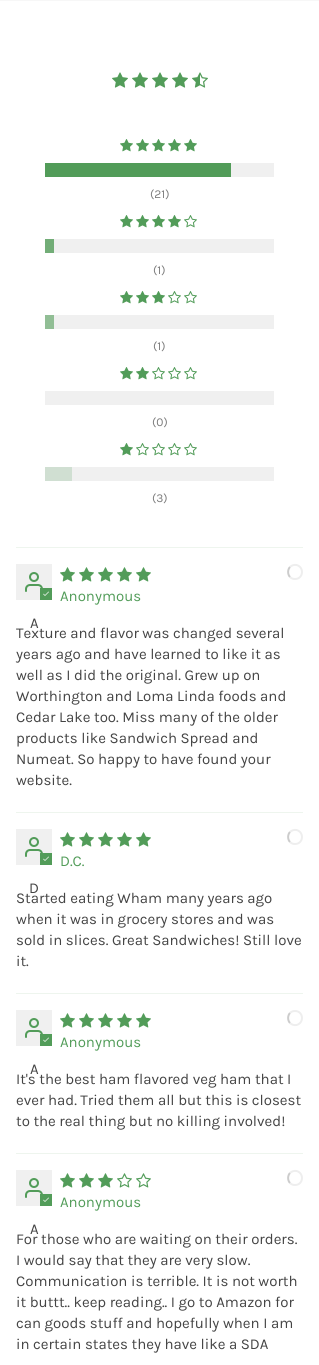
#include <cairo/cairo.h>
#include <math.h>
#include <stddef.h>

typedef struct { double x, y; const char *s; } line_t;
typedef struct { double x, y, w, h; unsigned color; } box_t;
static cairo_t *cr;

static void rgb(unsigned color)
{
	cairo_set_source_rgb(cr, (color >> 16) / 255.0, (color >> 8 & 255) / 255.0, (color & 255) / 255.0);
}

static void image(const char *path, double x, double y, double w, double h)
{
	cairo_surface_t *image = cairo_image_surface_create_from_png(path);
	cairo_save(cr);
	cairo_set_source_surface(cr, image, x, y);
	cairo_rectangle(cr, x, y, w, h);
	cairo_fill(cr);
	cairo_restore(cr);
	cairo_surface_destroy(image);
}

int main(void) {
	cairo_surface_t *surface = cairo_image_surface_create(CAIRO_FORMAT_RGB24, 319, 1365);
	cr = cairo_create(surface);
	cairo_font_options_t *options = cairo_font_options_create();
	cairo_font_options_set_hint_metrics(options, CAIRO_HINT_METRICS_OFF);
	cairo_font_options_set_hint_style(options, CAIRO_HINT_STYLE_NONE);
	cairo_set_font_options(cr, options);
	cairo_set_miter_limit(cr, 4);
	rgb(0xffffff);
	cairo_paint(cr);
	rgb(0xf7f7f7);
	cairo_rectangle(cr, 0, 0, 319, 1);
	cairo_fill(cr);
	image("img/1.png", 112, 72, 16, 16);
	image("img/1.png", 132, 72, 16, 16);
	image("img/1.png", 152, 72, 16, 16);
	image("img/1.png", 172, 72, 16, 16);
	image("img/2.png", 192, 72, 16, 16);
	image("img/3.png", 120, 139, 13, 13);
	image("img/3.png", 136, 139, 13, 13);
	image("img/3.png", 152, 139, 13, 13);
	image("img/3.png", 168, 139, 13, 13);
	image("img/3.png", 184, 139, 13, 13);
	rgb(0xf0f0f0);
	cairo_rectangle(cr, 231, 163, 43, 14);
	cairo_fill(cr);
	rgb(0x529c59);
	cairo_rectangle(cr, 45, 163, 186, 14);
	cairo_fill(cr);
	image("img/3.png", 120, 215, 13, 13);
	image("img/3.png", 136, 215, 13, 13);
	image("img/3.png", 152, 215, 13, 13);
	image("img/3.png", 168, 215, 13, 13);
	image("img/4.png", 184, 215, 13, 13);
	rgb(0xf0f0f0);
	cairo_rectangle(cr, 54, 239, 220, 14);
	cairo_fill(cr);
	rgb(0x72ad77);
	cairo_rectangle(cr, 45, 239, 9, 14);
	cairo_fill(cr);
	image("img/3.png", 120, 291, 13, 13);
	image("img/3.png", 136, 291, 13, 13);
	image("img/3.png", 152, 291, 13, 13);
	image("img/4.png", 168, 291, 13, 13);
	image("img/4.png", 184, 291, 13, 13);
	rgb(0xf0f0f0);
	cairo_rectangle(cr, 54, 315, 220, 14);
	cairo_fill(cr);
	rgb(0x91be95);
	cairo_rectangle(cr, 45, 315, 9, 14);
	cairo_fill(cr);
	image("img/3.png", 120, 367, 13, 13);
	image("img/3.png", 136, 367, 13, 13);
	image("img/4.png", 152, 367, 13, 13);
	image("img/4.png", 168, 367, 13, 13);
	image("img/4.png", 184, 367, 13, 13);
	rgb(0xf0f0f0);
	cairo_rectangle(cr, 45, 391, 229, 14);
	cairo_fill(cr);
	image("img/3.png", 120, 443, 13, 13);
	image("img/4.png", 136, 443, 13, 13);
	image("img/4.png", 152, 443, 13, 13);
	image("img/4.png", 168, 443, 13, 13);
	image("img/4.png", 184, 443, 13, 13);
	{
		static const box_t items[] = {
			{72, 467, 202, 14, 0xf0f0f0},
			{45, 467, 27, 14, 0xd0dfd2},
			{16, 547, 287, 1, 0xeef5ee},
		};
		for (size_t i = 0; i < sizeof items / sizeof *items; i++) {
			rgb(items[i].color);
			cairo_rectangle(cr, items[i].x, items[i].y, items[i].w, items[i].h);
			cairo_fill(cr);
		}
	}
	image("img/5.png", 60, 567, 15, 15);
	image("img/5.png", 79, 567, 15, 15);
	image("img/5.png", 98, 567, 15, 15);
	image("img/5.png", 117, 567, 15, 15);
	image("img/5.png", 136, 567, 15, 15);
	cairo_new_path(cr);
	cairo_move_to(cr, 290, 567);
	cairo_curve_to(cr, 291.5, 565.5, 294, 564.5, 296.5, 565);
	cairo_curve_to(cr, 304.5, 567, 303.5, 579, 295, 579);
	cairo_curve_to(cr, 293, 579, 291.5, 578.5, 290, 577);
	rgb(0xeeeeee);
	cairo_stroke(cr);
	cairo_new_path(cr);
	cairo_move_to(cr, 290, 577);
	cairo_curve_to(cr, 287.5, 574.5, 287.5, 569.5, 290, 567);
	rgb(0xcccccc);
	cairo_stroke(cr);
	rgb(0xf0f0f0);
	cairo_rectangle(cr, 16, 564, 36, 36);
	cairo_fill(cr);
	image("img/6.png", 25, 572, 18, 20);
	rgb(0x529c59);
	cairo_rectangle(cr, 40, 588, 12, 12);
	cairo_fill(cr);
	image("img/7.png", 43, 591, 6, 5);
	rgb(0xeef5ee);
	cairo_rectangle(cr, 16, 812, 287, 1);
	cairo_fill(cr);
	image("img/5.png", 60, 832, 15, 15);
	image("img/5.png", 79, 832, 15, 15);
	image("img/5.png", 98, 832, 15, 15);
	image("img/5.png", 117, 832, 15, 15);
	image("img/5.png", 136, 832, 15, 15);
	cairo_new_path(cr);
	cairo_move_to(cr, 290, 832);
	cairo_curve_to(cr, 291.5, 830.5, 294, 829.5, 296.5, 830);
	cairo_curve_to(cr, 304.5, 832, 303.5, 844, 295, 844);
	cairo_curve_to(cr, 293, 844, 291.5, 843.5, 290, 842);
	rgb(0xeeeeee);
	cairo_stroke(cr);
	cairo_new_path(cr);
	cairo_move_to(cr, 290, 842);
	cairo_curve_to(cr, 287.5, 839.5, 287.5, 834.5, 290, 832);
	rgb(0xcccccc);
	cairo_stroke(cr);
	rgb(0xf0f0f0);
	cairo_rectangle(cr, 16, 829, 36, 36);
	cairo_fill(cr);
	image("img/6.png", 25, 837, 18, 20);
	rgb(0x529c59);
	cairo_rectangle(cr, 40, 853, 12, 12);
	cairo_fill(cr);
	image("img/7.png", 43, 856, 6, 5);
	rgb(0xeef5ee);
	cairo_rectangle(cr, 16, 993, 287, 1);
	cairo_fill(cr);
	image("img/5.png", 60, 1013, 15, 15);
	image("img/5.png", 79, 1013, 15, 15);
	image("img/5.png", 98, 1013, 15, 15);
	image("img/5.png", 117, 1013, 15, 15);
	image("img/5.png", 136, 1013, 15, 15);
	cairo_new_path(cr);
	cairo_move_to(cr, 290, 1013);
	cairo_curve_to(cr, 291.5, 1011.5, 293, 1011, 295, 1011);
	cairo_curve_to(cr, 303.5, 1011, 304.5, 1023, 296.5, 1025);
	cairo_curve_to(cr, 294, 1025.5, 291.5, 1024.5, 290, 1023);
	rgb(0xeeeeee);
	cairo_stroke(cr);
	cairo_new_path(cr);
	cairo_move_to(cr, 290, 1023);
	cairo_curve_to(cr, 287.5, 1020.5, 287.5, 1015.5, 290, 1013);
	rgb(0xcccccc);
	cairo_stroke(cr);
	rgb(0xf0f0f0);
	cairo_rectangle(cr, 16, 1010, 36, 36);
	cairo_fill(cr);
	image("img/6.png", 25, 1018, 18, 20);
	rgb(0x529c59);
	cairo_rectangle(cr, 40, 1034, 12, 12);
	cairo_fill(cr);
	image("img/7.png", 43, 1037, 6, 5);
	rgb(0xeef5ee);
	cairo_rectangle(cr, 16, 1153, 287, 1);
	cairo_fill(cr);
	image("img/5.png", 60, 1173, 15, 15);
	image("img/5.png", 79, 1173, 15, 15);
	image("img/5.png", 98, 1173, 15, 15);
	image("img/8.png", 117, 1173, 15, 15);
	image("img/8.png", 136, 1173, 15, 15);
	cairo_new_path(cr);
	cairo_move_to(cr, 290, 1173);
	cairo_curve_to(cr, 291.5, 1171.5, 294, 1170.5, 296.5, 1171);
	cairo_curve_to(cr, 304.5, 1173, 303.5, 1185, 295, 1185);
	cairo_curve_to(cr, 293, 1185, 291.5, 1184.5, 290, 1183);
	rgb(0xeeeeee);
	cairo_stroke(cr);
	cairo_new_path(cr);
	cairo_move_to(cr, 290, 1183);
	cairo_curve_to(cr, 287.5, 1180.5, 287.5, 1175.5, 290, 1173);
	rgb(0xcccccc);
	cairo_stroke(cr);
	rgb(0xf0f0f0);
	cairo_rectangle(cr, 16, 1170, 36, 36);
	cairo_fill(cr);
	image("img/6.png", 25, 1178, 18, 20);
	rgb(0x529c59);
	cairo_rectangle(cr, 40, 1194, 12, 12);
	cairo_fill(cr);
	image("img/7.png", 43, 1197, 6, 5);
	cairo_select_font_face(cr, "Karla", CAIRO_FONT_SLANT_NORMAL, CAIRO_FONT_WEIGHT_NORMAL);
	cairo_set_font_size(cr, 12);
	rgb(0x7b7b7b);
	{
		static const line_t items[] = {
			{150, 198, "(21)"},
			{153, 274, "(1)"},
			{153, 350, "(1)"},
			{152, 426, "(0)"},
			{152, 502, "(3)"},
		};
		for (size_t i = 0; i < sizeof items / sizeof *items; i++) {
			cairo_move_to(cr, items[i].x, items[i].y);
			cairo_show_text(cr, items[i].s);
		}
	}
	cairo_set_font_size(cr, 15);
	rgb(0x529c59);
	cairo_move_to(cr, 60, 601);
	cairo_show_text(cr, "Anonymous");
	rgb(0x444444);
	{
		static const line_t items[] = {
			{30, 628, "A"},
			{16, 638, "Texture and flavor was changed several"},
			{16, 659, "years ago and have learned to like it as"},
			{16, 680, "well as I did the original. Grew up on"},
			{16, 701, "Worthington and Loma Linda foods and"},
			{16, 722, "Cedar Lake too. Miss many of the older"},
			{16, 743, "products like Sandwich Spread and"},
			{16, 764, "Numeat. So happy to have found your"},
			{16, 785, "website."},
		};
		for (size_t i = 0; i < sizeof items / sizeof *items; i++) {
			cairo_move_to(cr, items[i].x, items[i].y);
			cairo_show_text(cr, items[i].s);
		}
	}
	rgb(0x529c59);
	cairo_move_to(cr, 60, 866);
	cairo_show_text(cr, "D.C.");
	rgb(0x444444);
	{
		static const line_t items[] = {
			{29, 893, "D"},
			{16, 903, "Started eating Wham many years ago"},
			{16, 924, "when it was in grocery stores and was"},
			{16, 945, "sold in slices. Great Sandwiches! Still love"},
			{16, 966, "it."},
		};
		for (size_t i = 0; i < sizeof items / sizeof *items; i++) {
			cairo_move_to(cr, items[i].x, items[i].y);
			cairo_show_text(cr, items[i].s);
		}
	}
	rgb(0x529c59);
	cairo_move_to(cr, 60, 1047);
	cairo_show_text(cr, "Anonymous");
	rgb(0x444444);
	{
		static const line_t items[] = {
			{30, 1074, "A"},
			{16, 1084, "It's the best ham flavored veg ham that I"},
			{16, 1105, "ever had. Tried them all but this is closest"},
			{16, 1126, "to the real thing but no killing involved!"},
		};
		for (size_t i = 0; i < sizeof items / sizeof *items; i++) {
			cairo_move_to(cr, items[i].x, items[i].y);
			cairo_show_text(cr, items[i].s);
		}
	}
	rgb(0x529c59);
	cairo_move_to(cr, 60, 1207);
	cairo_show_text(cr, "Anonymous");
	rgb(0x444444);
	{
		static const line_t items[] = {
			{30, 1234, "A"},
			{16, 1244, "For those who are waiting on their orders."},
			{16, 1265, "I would say that they are very slow."},
			{16, 1286, "Communication is terrible. It is not worth"},
			{16, 1307, "it buttt.. keep reading.. I go to Amazon for"},
			{16, 1328, "can goods stuff and hopefully when I am"},
			{16, 1349, "in certain states they have like a SDA"},
		};
		for (size_t i = 0; i < sizeof items / sizeof *items; i++) {
			cairo_move_to(cr, items[i].x, items[i].y);
			cairo_show_text(cr, items[i].s);
		}
	}
	cairo_surface_write_to_png(surface, "page.png");
	cairo_font_options_destroy(options);
	cairo_destroy(cr);
	cairo_surface_destroy(surface);
	return 0;
}
